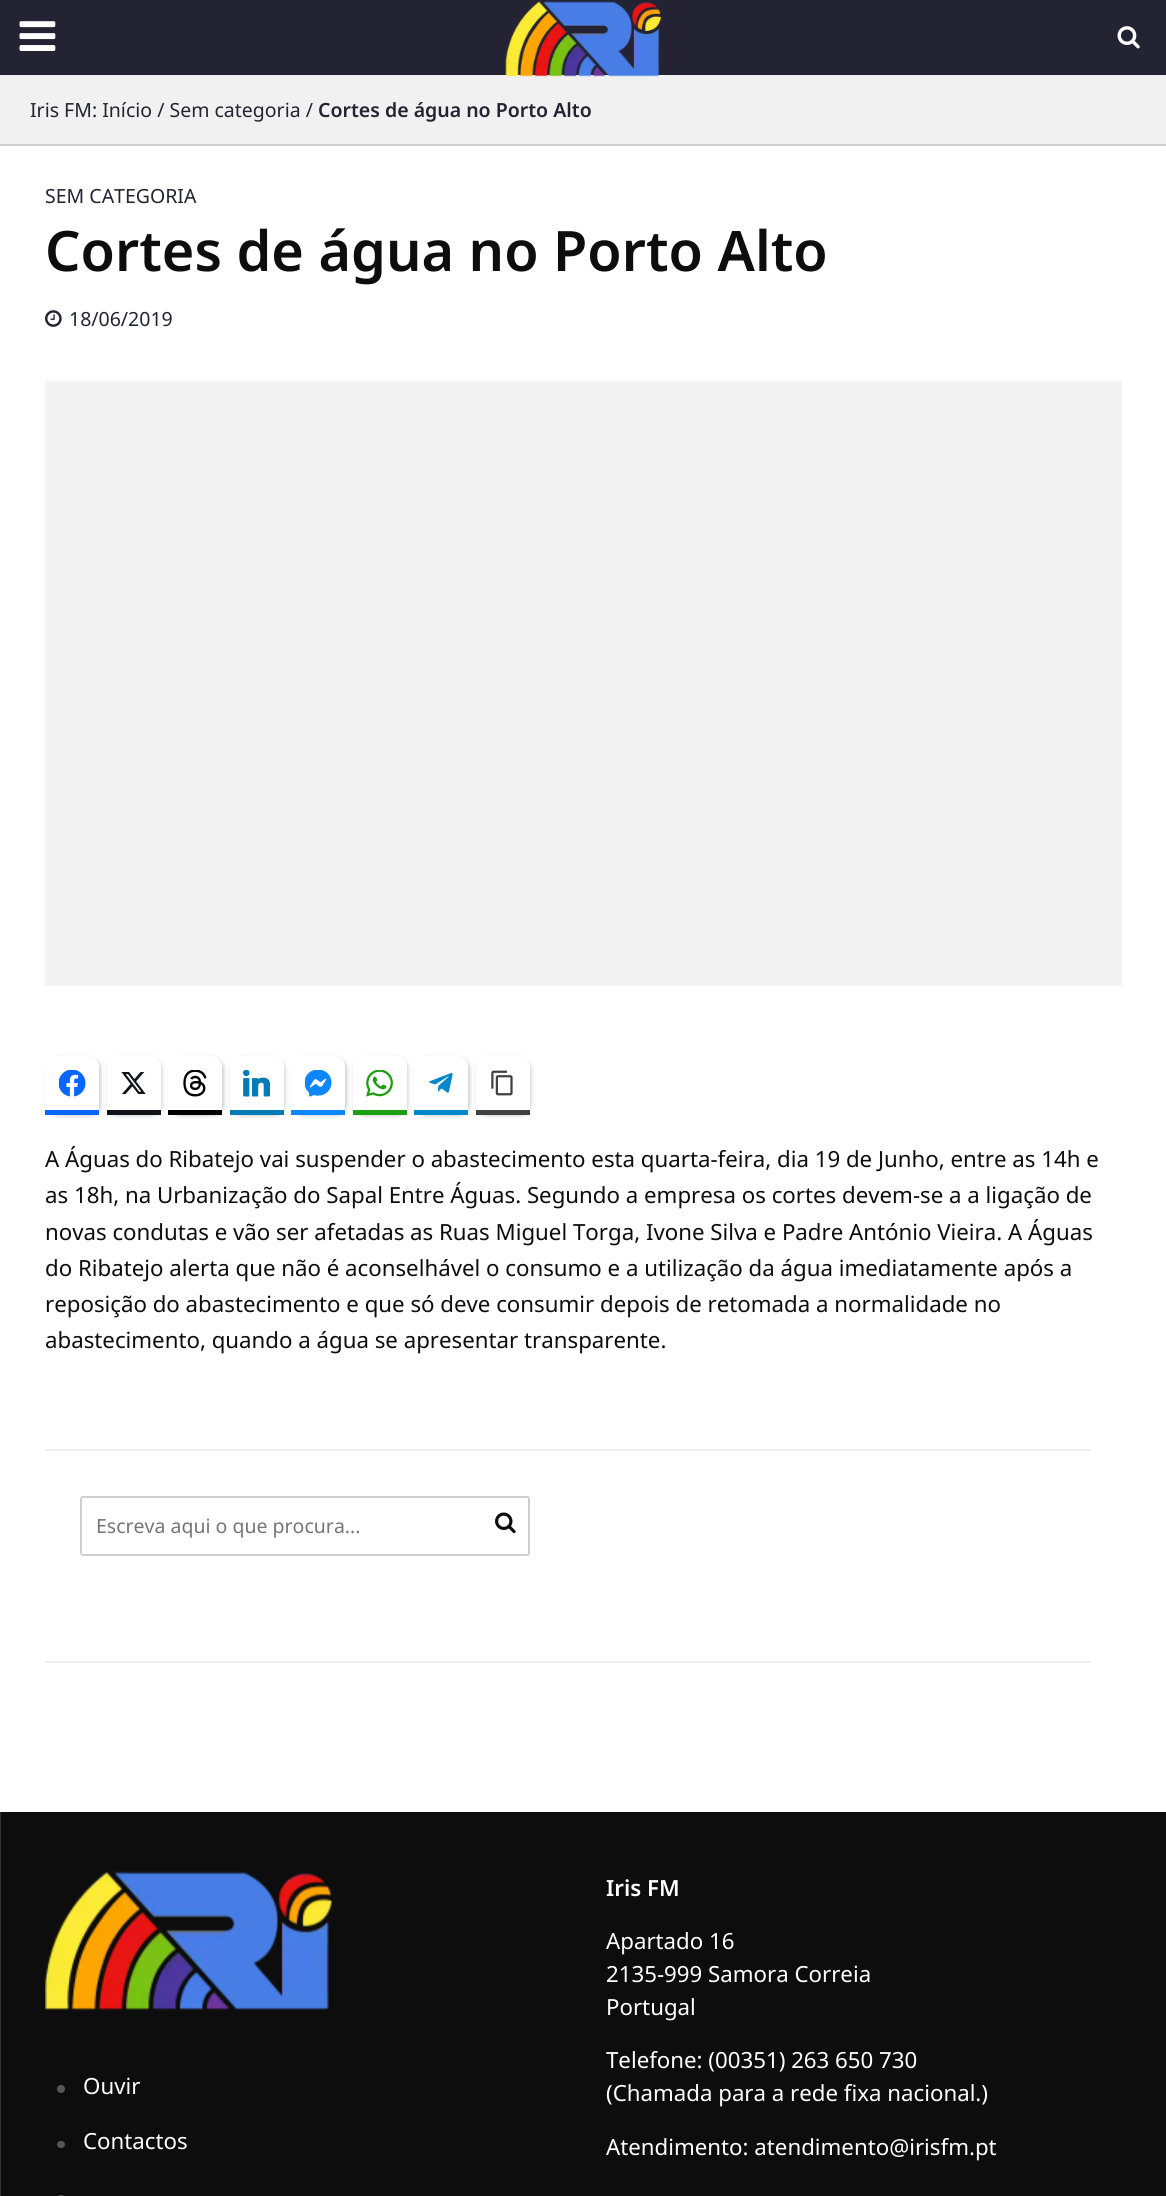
#include <cairo/cairo.h>
#include <math.h>
#include <stddef.h>

typedef struct { double x, y; const char *s; } line_t;
static cairo_t *cr;

static void rgb(unsigned color)
{
	cairo_set_source_rgb(cr, (color >> 16) / 255.0, (color >> 8 & 255) / 255.0, (color & 255) / 255.0);
}

static void rrect(double x, double y, double w, double h, double r)
{
	cairo_new_sub_path(cr);
	cairo_arc(cr, x + w - r, y + h - r, r, 0, M_PI / 2);
	cairo_arc(cr, x + r, y + h - r, r, M_PI / 2, M_PI);
	cairo_arc(cr, x + r, y + r, r, M_PI, 1.5 * M_PI);
	cairo_arc(cr, x + w - r, y + r, r, 1.5 * M_PI, 2 * M_PI);
	cairo_close_path(cr);
}

static void soft_shadow(double x, double y, double w, double h, double r, double blur, double alpha)
{
	cairo_push_group_with_content(cr, CAIRO_CONTENT_ALPHA);
	cairo_set_operator(cr, CAIRO_OPERATOR_SOURCE);
	for (int i = 15; i >= -15 && fmin(w, h) + blur * i / 3 > 0; i -= 2) {
		double e = blur * i / 6;
		cairo_set_source_rgba(cr, 0, 0, 0, alpha * erfc((i - 1) / 8.5) / 2);
		rrect(x - e, y - e, w + 2 * e, h + 2 * e, fmax(0, fmin(r + e + blur * .6, fmin(w, h) / 2 + e)));
		cairo_fill(cr);
	}
	cairo_pattern_t *soft = cairo_pop_group(cr);
	cairo_mask(cr, soft);
	cairo_pattern_destroy(soft);
}

static void image(const char *path, double x, double y, double w, double h)
{
	cairo_surface_t *image = cairo_image_surface_create_from_png(path);
	cairo_save(cr);
	cairo_set_source_surface(cr, image, x, y);
	cairo_rectangle(cr, x, y, w, h);
	cairo_fill(cr);
	cairo_restore(cr);
	cairo_surface_destroy(image);
}

int main(void) {
	cairo_surface_t *surface = cairo_image_surface_create(CAIRO_FORMAT_RGB24, 1166, 2196);
	cr = cairo_create(surface);
	cairo_font_options_t *options = cairo_font_options_create();
	cairo_font_options_set_hint_metrics(options, CAIRO_HINT_METRICS_OFF);
	cairo_font_options_set_hint_style(options, CAIRO_HINT_STYLE_NONE);
	cairo_set_font_options(cr, options);
	cairo_set_miter_limit(cr, 4);
	rgb(0x0d0d0d);
	cairo_paint(cr);
	rgb(0x313131);
	cairo_rectangle(cr, 0, 1812, 1, 384);
	cairo_fill(cr);
	cairo_rectangle(cr, 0, 75, 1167, 1738);
	cairo_set_source_rgba(cr, 0.051, 0.051, 0.051, 0.1);
	cairo_stroke(cr);
	rgb(0x232333);
	cairo_rectangle(cr, 0, 0, 1166, 75);
	cairo_fill(cr);
	image("img/1.png", 19, 21, 37, 30);
	rgb(0xf1f1f1);
	cairo_rectangle(cr, 0, 75, 1166, 69);
	cairo_fill(cr);
	image("img/2.png", 505, 1, 156, 76);
	image("img/3.png", 1117, 26, 23, 23);
	rgb(0xffffff);
	cairo_rectangle(cr, 0, 146, 1166, 1666);
	cairo_fill(cr);
	rgb(0xcfcfcf);
	cairo_rectangle(cr, 0, 144, 1166, 2);
	cairo_fill(cr);
	image("img/4.png", 45, 310, 17, 17);
	rgb(0xf3f3f3);
	cairo_rectangle(cr, 45, 381, 1077, 605);
	cairo_fill(cr);
	cairo_save(cr);
	cairo_set_fill_rule(cr, CAIRO_FILL_RULE_EVEN_ODD);
	cairo_new_path(cr);
	cairo_move_to(cr, 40, 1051);
	cairo_line_to(cr, 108, 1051);
	cairo_line_to(cr, 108, 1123);
	cairo_line_to(cr, 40, 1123);
	cairo_close_path(cr);
	cairo_move_to(cr, 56, 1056);
	cairo_line_to(cr, 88, 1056);
	cairo_curve_to(cr, 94, 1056, 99, 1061, 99, 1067);
	cairo_line_to(cr, 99, 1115);
	cairo_line_to(cr, 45, 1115);
	cairo_line_to(cr, 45, 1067);
	cairo_curve_to(cr, 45, 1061, 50, 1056, 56, 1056);
	cairo_close_path(cr);
	cairo_clip(cr);
	rgb(0x000000);
	soft_shadow(47, 1058, 54, 58, 11, 2, 0.2);
	cairo_restore(cr);
	rgb(0x0866ff);
	cairo_rectangle(cr, 45, 1110, 54, 5);
	cairo_fill(cr);
	image("img/5.png", 59, 1070, 27, 27);
	cairo_save(cr);
	cairo_set_fill_rule(cr, CAIRO_FILL_RULE_EVEN_ODD);
	cairo_new_path(cr);
	cairo_move_to(cr, 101, 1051);
	cairo_line_to(cr, 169, 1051);
	cairo_line_to(cr, 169, 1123);
	cairo_line_to(cr, 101, 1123);
	cairo_close_path(cr);
	cairo_move_to(cr, 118, 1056);
	cairo_line_to(cr, 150, 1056);
	cairo_curve_to(cr, 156, 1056, 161, 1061, 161, 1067);
	cairo_line_to(cr, 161, 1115);
	cairo_line_to(cr, 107, 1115);
	cairo_line_to(cr, 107, 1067);
	cairo_curve_to(cr, 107, 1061, 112, 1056, 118, 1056);
	cairo_close_path(cr);
	cairo_clip(cr);
	rgb(0x000000);
	soft_shadow(108, 1058, 54, 58, 11, 2, 0.2);
	cairo_restore(cr);
	rgb(0x0f1419);
	cairo_rectangle(cr, 107, 1110, 54, 5);
	cairo_fill(cr);
	image("img/6.png", 121, 1072, 25, 22);
	cairo_save(cr);
	cairo_set_fill_rule(cr, CAIRO_FILL_RULE_EVEN_ODD);
	cairo_new_path(cr);
	cairo_move_to(cr, 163, 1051);
	cairo_line_to(cr, 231, 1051);
	cairo_line_to(cr, 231, 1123);
	cairo_line_to(cr, 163, 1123);
	cairo_close_path(cr);
	cairo_move_to(cr, 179, 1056);
	cairo_line_to(cr, 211, 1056);
	cairo_curve_to(cr, 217, 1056, 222, 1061, 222, 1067);
	cairo_line_to(cr, 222, 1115);
	cairo_line_to(cr, 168, 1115);
	cairo_line_to(cr, 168, 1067);
	cairo_curve_to(cr, 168, 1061, 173, 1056, 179, 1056);
	cairo_close_path(cr);
	cairo_clip(cr);
	rgb(0x000000);
	soft_shadow(170, 1058, 54, 58, 11, 2, 0.2);
	cairo_restore(cr);
	rgb(0x000000);
	cairo_rectangle(cr, 168, 1110, 54, 5);
	cairo_fill(cr);
	image("img/7.png", 183, 1070, 24, 27);
	cairo_save(cr);
	cairo_set_fill_rule(cr, CAIRO_FILL_RULE_EVEN_ODD);
	cairo_new_path(cr);
	cairo_move_to(cr, 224, 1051);
	cairo_line_to(cr, 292, 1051);
	cairo_line_to(cr, 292, 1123);
	cairo_line_to(cr, 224, 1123);
	cairo_close_path(cr);
	cairo_move_to(cr, 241, 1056);
	cairo_line_to(cr, 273, 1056);
	cairo_curve_to(cr, 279, 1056, 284, 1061, 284, 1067);
	cairo_line_to(cr, 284, 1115);
	cairo_line_to(cr, 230, 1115);
	cairo_line_to(cr, 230, 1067);
	cairo_curve_to(cr, 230, 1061, 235, 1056, 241, 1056);
	cairo_close_path(cr);
	cairo_clip(cr);
	rgb(0x000000);
	soft_shadow(231, 1058, 54, 58, 11, 2, 0.2);
	cairo_restore(cr);
	rgb(0x007bb6);
	cairo_rectangle(cr, 230, 1110, 54, 5);
	cairo_fill(cr);
	image("img/8.png", 243, 1070, 27, 27);
	cairo_save(cr);
	cairo_set_fill_rule(cr, CAIRO_FILL_RULE_EVEN_ODD);
	cairo_new_path(cr);
	cairo_move_to(cr, 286, 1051);
	cairo_line_to(cr, 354, 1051);
	cairo_line_to(cr, 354, 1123);
	cairo_line_to(cr, 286, 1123);
	cairo_close_path(cr);
	cairo_move_to(cr, 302, 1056);
	cairo_line_to(cr, 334, 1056);
	cairo_curve_to(cr, 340, 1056, 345, 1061, 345, 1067);
	cairo_line_to(cr, 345, 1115);
	cairo_line_to(cr, 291, 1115);
	cairo_line_to(cr, 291, 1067);
	cairo_curve_to(cr, 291, 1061, 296, 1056, 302, 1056);
	cairo_close_path(cr);
	cairo_clip(cr);
	rgb(0x000000);
	soft_shadow(293, 1058, 54, 58, 11, 2, 0.2);
	cairo_restore(cr);
	rgb(0x0d87ff);
	cairo_rectangle(cr, 291, 1110, 54, 5);
	cairo_fill(cr);
	image("img/9.png", 305, 1070, 27, 27);
	cairo_save(cr);
	cairo_set_fill_rule(cr, CAIRO_FILL_RULE_EVEN_ODD);
	cairo_new_path(cr);
	cairo_move_to(cr, 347, 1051);
	cairo_line_to(cr, 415, 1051);
	cairo_line_to(cr, 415, 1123);
	cairo_line_to(cr, 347, 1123);
	cairo_close_path(cr);
	cairo_move_to(cr, 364, 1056);
	cairo_line_to(cr, 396, 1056);
	cairo_curve_to(cr, 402, 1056, 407, 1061, 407, 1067);
	cairo_line_to(cr, 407, 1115);
	cairo_line_to(cr, 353, 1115);
	cairo_line_to(cr, 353, 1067);
	cairo_curve_to(cr, 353, 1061, 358, 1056, 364, 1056);
	cairo_close_path(cr);
	cairo_clip(cr);
	rgb(0x000000);
	soft_shadow(354, 1058, 54, 58, 11, 2, 0.2);
	cairo_restore(cr);
	rgb(0x1d9e11);
	cairo_rectangle(cr, 353, 1110, 54, 5);
	cairo_fill(cr);
	image("img/10.png", 366, 1070, 27, 27);
	cairo_save(cr);
	cairo_set_fill_rule(cr, CAIRO_FILL_RULE_EVEN_ODD);
	cairo_new_path(cr);
	cairo_move_to(cr, 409, 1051);
	cairo_line_to(cr, 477, 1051);
	cairo_line_to(cr, 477, 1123);
	cairo_line_to(cr, 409, 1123);
	cairo_close_path(cr);
	cairo_move_to(cr, 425, 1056);
	cairo_line_to(cr, 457, 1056);
	cairo_curve_to(cr, 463, 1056, 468, 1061, 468, 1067);
	cairo_line_to(cr, 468, 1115);
	cairo_line_to(cr, 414, 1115);
	cairo_line_to(cr, 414, 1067);
	cairo_curve_to(cr, 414, 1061, 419, 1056, 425, 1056);
	cairo_close_path(cr);
	cairo_clip(cr);
	rgb(0x000000);
	soft_shadow(416, 1058, 54, 58, 11, 2, 0.2);
	cairo_restore(cr);
	rgb(0x0088cc);
	cairo_rectangle(cr, 414, 1110, 54, 5);
	cairo_fill(cr);
	image("img/11.png", 429, 1072, 24, 21);
	cairo_save(cr);
	cairo_set_fill_rule(cr, CAIRO_FILL_RULE_EVEN_ODD);
	cairo_new_path(cr);
	cairo_move_to(cr, 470, 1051);
	cairo_line_to(cr, 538, 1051);
	cairo_line_to(cr, 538, 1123);
	cairo_line_to(cr, 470, 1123);
	cairo_close_path(cr);
	cairo_move_to(cr, 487, 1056);
	cairo_line_to(cr, 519, 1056);
	cairo_curve_to(cr, 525, 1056, 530, 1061, 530, 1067);
	cairo_line_to(cr, 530, 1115);
	cairo_line_to(cr, 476, 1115);
	cairo_line_to(cr, 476, 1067);
	cairo_curve_to(cr, 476, 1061, 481, 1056, 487, 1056);
	cairo_close_path(cr);
	cairo_clip(cr);
	rgb(0x000000);
	soft_shadow(477, 1058, 54, 58, 11, 2, 0.2);
	cairo_restore(cr);
	rgb(0x404040);
	cairo_rectangle(cr, 476, 1110, 54, 5);
	cairo_fill(cr);
	image("img/12.png", 491, 1070, 22, 26);
	rgb(0xeeeeee);
	cairo_rectangle(cr, 45, 1449, 1046, 2);
	cairo_fill(cr);
	cairo_rectangle(cr, 45, 1661, 1046, 2);
	cairo_fill(cr);
	rrect(81, 1497, 448, 58, 2);
	rgb(0xcfcfcf);
	cairo_stroke(cr);
	image("img/13.png", 495, 1512, 21, 22);
	image("img/14.png", 45, 1871, 287, 140);
	rgb(0x565656);
	cairo_arc(cr, 61, 2089, 4, 0, 2 * M_PI);
	cairo_fill(cr);
	rrect(57, 2141, 8, 7, 3.5);
	cairo_fill(cr);
	rrect(57, 2195, 8, 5, 3.5);
	cairo_fill(cr);
	cairo_select_font_face(cr, "Noto Sans", CAIRO_FONT_SLANT_NORMAL, CAIRO_FONT_WEIGHT_NORMAL);
	cairo_set_font_size(cr, 19.5);
	rgb(0x232333);
	cairo_move_to(cr, 30, 117);
	cairo_show_text(cr, "Iris FM: Início / Sem categoria /");
	cairo_select_font_face(cr, "Noto Sans SemiBold", CAIRO_FONT_SLANT_NORMAL, CAIRO_FONT_WEIGHT_NORMAL);
	cairo_move_to(cr, 318, 117);
	cairo_show_text(cr, "Cortes de água no Porto Alto");
	cairo_select_font_face(cr, "Noto Sans", CAIRO_FONT_SLANT_NORMAL, CAIRO_FONT_WEIGHT_NORMAL);
	cairo_move_to(cr, 45, 203);
	cairo_show_text(cr, "SEM CATEGORIA");
	cairo_select_font_face(cr, "Noto Sans SemiBold", CAIRO_FONT_SLANT_NORMAL, CAIRO_FONT_WEIGHT_NORMAL);
	cairo_set_font_size(cr, 55.75);
	rgb(0x0d0d0d);
	cairo_move_to(cr, 45, 271);
	cairo_show_text(cr, "Cortes de água no Porto Alto");
	cairo_select_font_face(cr, "Noto Sans", CAIRO_FONT_SLANT_NORMAL, CAIRO_FONT_WEIGHT_NORMAL);
	cairo_set_font_size(cr, 19.5);
	rgb(0x232333);
	cairo_move_to(cr, 69, 326);
	cairo_show_text(cr, "18/06/2019");
	cairo_set_font_size(cr, 22.25);
	rgb(0x0d0d0d);
	{
		static const line_t items[] = {
			{45, 1167, "A Águas do Ribatejo vai suspender o abastecimento esta quarta-feira, dia 19 de Junho, entre as 14h e"},
			{45, 1203, "as 18h, na Urbanização do Sapal Entre Águas. Segundo a empresa os cortes devem-se a a ligação de"},
			{45, 1240, "novas condutas e vão ser afetadas as Ruas Miguel Torga, Ivone Silva e Padre António Vieira. A Águas"},
			{45, 1276, "do Ribatejo alerta que não é aconselhável o consumo e a utilização da água imediatamente após a"},
			{45, 1312, "reposição do abastecimento e que só deve consumir depois de retomada a normalidade no"},
			{45, 1348, "abastecimento, quando a água se apresentar transparente."},
		};
		for (size_t i = 0; i < sizeof items / sizeof *items; i++) {
			cairo_move_to(cr, items[i].x, items[i].y);
			cairo_show_text(cr, items[i].s);
		}
	}
	cairo_set_font_size(cr, 19.5);
	rgb(0x757575);
	cairo_move_to(cr, 96, 1533);
	cairo_show_text(cr, "Escreva aqui o que procura...");
	cairo_set_font_size(cr, 22.25);
	rgb(0xffffff);
	cairo_move_to(cr, 83, 2094);
	cairo_show_text(cr, "Ouvir");
	cairo_move_to(cr, 83, 2149);
	cairo_show_text(cr, "Contactos");
	cairo_select_font_face(cr, "Noto Sans SemiBold", CAIRO_FONT_SLANT_NORMAL, CAIRO_FONT_WEIGHT_NORMAL);
	cairo_move_to(cr, 606, 1896);
	cairo_show_text(cr, "Iris FM");
	cairo_select_font_face(cr, "Noto Sans", CAIRO_FONT_SLANT_NORMAL, CAIRO_FONT_WEIGHT_NORMAL);
	{
		static const line_t items[] = {
			{606, 1949, "Apartado 16"},
			{606, 1982, "2135-999 Samora Correia"},
			{606, 2015, "Portugal"},
			{606, 2068, "Telefone: (00351) 263 650 730"},
			{606, 2101, "(Chamada para a rede fixa nacional.)"},
			{606, 2155, "Atendimento: atendimento@irisfm.pt"},
		};
		for (size_t i = 0; i < sizeof items / sizeof *items; i++) {
			cairo_move_to(cr, items[i].x, items[i].y);
			cairo_show_text(cr, items[i].s);
		}
	}
	cairo_surface_write_to_png(surface, "page.png");
	cairo_font_options_destroy(options);
	cairo_destroy(cr);
	cairo_surface_destroy(surface);
	return 0;
}
